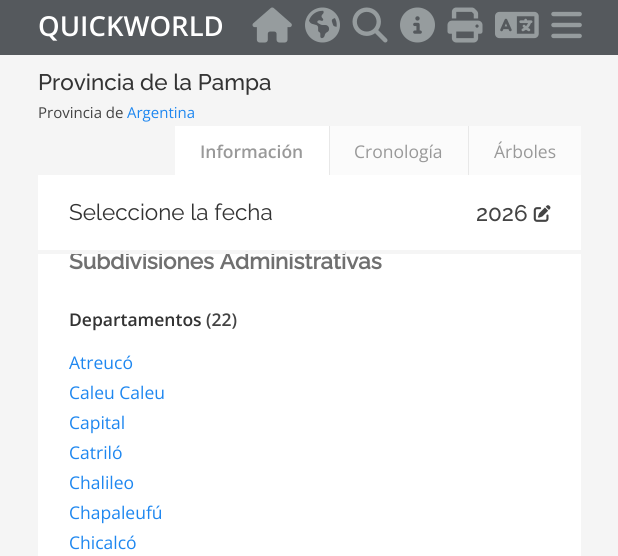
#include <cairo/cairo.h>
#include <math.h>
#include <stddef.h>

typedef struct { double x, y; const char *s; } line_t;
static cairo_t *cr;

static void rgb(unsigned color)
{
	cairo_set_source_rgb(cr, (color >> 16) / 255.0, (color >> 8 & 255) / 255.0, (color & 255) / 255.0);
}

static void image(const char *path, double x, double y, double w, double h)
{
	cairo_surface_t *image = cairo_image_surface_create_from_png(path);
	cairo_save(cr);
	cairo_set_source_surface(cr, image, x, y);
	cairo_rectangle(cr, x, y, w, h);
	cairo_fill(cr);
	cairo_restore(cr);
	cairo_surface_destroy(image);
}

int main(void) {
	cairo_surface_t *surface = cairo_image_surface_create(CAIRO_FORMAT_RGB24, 618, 556);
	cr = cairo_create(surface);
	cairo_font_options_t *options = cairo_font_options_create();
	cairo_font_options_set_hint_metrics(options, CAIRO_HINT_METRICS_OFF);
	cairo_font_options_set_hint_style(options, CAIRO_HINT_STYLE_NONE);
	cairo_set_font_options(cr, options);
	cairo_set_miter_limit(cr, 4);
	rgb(0xf5f5f5);
	cairo_paint(cr);
	rgb(0x55595d);
	cairo_rectangle(cr, 0, 0, 618, 55);
	cairo_fill(cr);
	image("img/1.png", 252, 7, 40, 36);
	image("img/2.png", 305, 7, 35, 36);
	image("img/3.png", 352, 7, 36, 36);
	image("img/4.png", 400, 7, 35, 36);
	image("img/5.png", 447, 7, 36, 36);
	image("img/6.png", 495, 11, 44, 28);
	image("img/7.png", 551, 11, 31, 28);
	rgb(0xffffff);
	cairo_rectangle(cr, 175, 126, 154, 49);
	cairo_fill(cr);
	rgb(0xfbfbfb);
	cairo_rectangle(cr, 329, 126, 252, 49);
	cairo_fill(cr);
	cairo_set_source_rgba(cr, 0.471, 0.475, 0.478, 0.15);
	cairo_new_path(cr);
	cairo_move_to(cr, 329, 178);
	cairo_line_to(cr, 329, 126);
	cairo_line_to(cr, 330, 126);
	cairo_line_to(cr, 330, 176);
	cairo_close_path(cr);
	cairo_fill(cr);
	cairo_new_path(cr);
	cairo_move_to(cr, 468, 178);
	cairo_line_to(cr, 468, 126);
	cairo_line_to(cr, 469, 126);
	cairo_line_to(cr, 469, 176);
	cairo_close_path(cr);
	cairo_fill(cr);
	rgb(0xffffff);
	cairo_rectangle(cr, 38, 175, 543, 75);
	cairo_fill(cr);
	image("img/8.png", 533, 205, 18, 17);
	cairo_rectangle(cr, 38, 254, 543, 302);
	cairo_fill(cr);
	cairo_select_font_face(cr, "Open Sans SemiBold", CAIRO_FONT_SLANT_NORMAL, CAIRO_FONT_WEIGHT_NORMAL);
	cairo_set_font_size(cr, 27.5);
	cairo_move_to(cr, 38, 36);
	cairo_show_text(cr, "QUICKWORLD");
	cairo_select_font_face(cr, "Raleway Medium", CAIRO_FONT_SLANT_NORMAL, CAIRO_FONT_WEIGHT_NORMAL);
	cairo_set_font_size(cr, 22.5);
	rgb(0x333333);
	cairo_move_to(cr, 38, 90);
	cairo_show_text(cr, "Provincia de la Pampa");
	cairo_select_font_face(cr, "Open Sans", CAIRO_FONT_SLANT_NORMAL, CAIRO_FONT_WEIGHT_NORMAL);
	cairo_set_font_size(cr, 15);
	rgb(0x444444);
	cairo_move_to(cr, 38, 118);
	cairo_show_text(cr, "Provincia de");
	rgb(0x1e87f0);
	cairo_move_to(cr, 127, 118);
	cairo_show_text(cr, "Argentina");
	cairo_select_font_face(cr, "Open Sans SemiBold", CAIRO_FONT_SLANT_NORMAL, CAIRO_FONT_WEIGHT_NORMAL);
	cairo_set_font_size(cr, 17.5);
	rgb(0x999999);
	cairo_move_to(cr, 200, 158);
	cairo_show_text(cr, "Información");
	cairo_select_font_face(cr, "Open Sans", CAIRO_FONT_SLANT_NORMAL, CAIRO_FONT_WEIGHT_NORMAL);
	cairo_move_to(cr, 354, 158);
	cairo_show_text(cr, "Cronología");
	cairo_move_to(cr, 494, 158);
	cairo_show_text(cr, "Árboles");
	cairo_select_font_face(cr, "Raleway", CAIRO_FONT_SLANT_NORMAL, CAIRO_FONT_WEIGHT_NORMAL);
	cairo_set_font_size(cr, 22.5);
	rgb(0x333333);
	cairo_move_to(cr, 69, 220);
	cairo_show_text(cr, "Seleccione la fecha");
	cairo_select_font_face(cr, "Raleway Medium", CAIRO_FONT_SLANT_NORMAL, CAIRO_FONT_WEIGHT_NORMAL);
	rgb(0x444444);
	cairo_move_to(cr, 476, 221);
	cairo_show_text(cr, "2026");
	cairo_select_font_face(cr, "Raleway", CAIRO_FONT_SLANT_NORMAL, CAIRO_FONT_WEIGHT_BOLD);
	rgb(0x707070);
	cairo_move_to(cr, 69, 269);
	cairo_show_text(cr, "Subdivisiones Administrativas");
	cairo_select_font_face(cr, "Open Sans SemiBold", CAIRO_FONT_SLANT_NORMAL, CAIRO_FONT_WEIGHT_NORMAL);
	cairo_set_font_size(cr, 17.5);
	rgb(0x333333);
	cairo_move_to(cr, 69, 326);
	cairo_show_text(cr, "Departamentos");
	rgb(0x444444);
	cairo_move_to(cr, 206, 326);
	cairo_show_text(cr, "(22)");
	cairo_select_font_face(cr, "Open Sans", CAIRO_FONT_SLANT_NORMAL, CAIRO_FONT_WEIGHT_NORMAL);
	rgb(0x1e87f0);
	{
		static const line_t items[] = {
			{69, 369, "Atreucó"},
			{69, 399, "Caleu Caleu"},
			{69, 429, "Capital"},
			{69, 459, "Catriló"},
			{69, 489, "Chalileo"},
			{69, 519, "Chapaleufú"},
			{69, 549, "Chicalcó"},
		};
		for (size_t i = 0; i < sizeof items / sizeof *items; i++) {
			cairo_move_to(cr, items[i].x, items[i].y);
			cairo_show_text(cr, items[i].s);
		}
	}
	rgb(0xf5f5f5);
	cairo_rectangle(cr, 72, 252, 273, 2);
	cairo_fill(cr);
	cairo_surface_write_to_png(surface, "page.png");
	cairo_font_options_destroy(options);
	cairo_destroy(cr);
	cairo_surface_destroy(surface);
	return 0;
}
